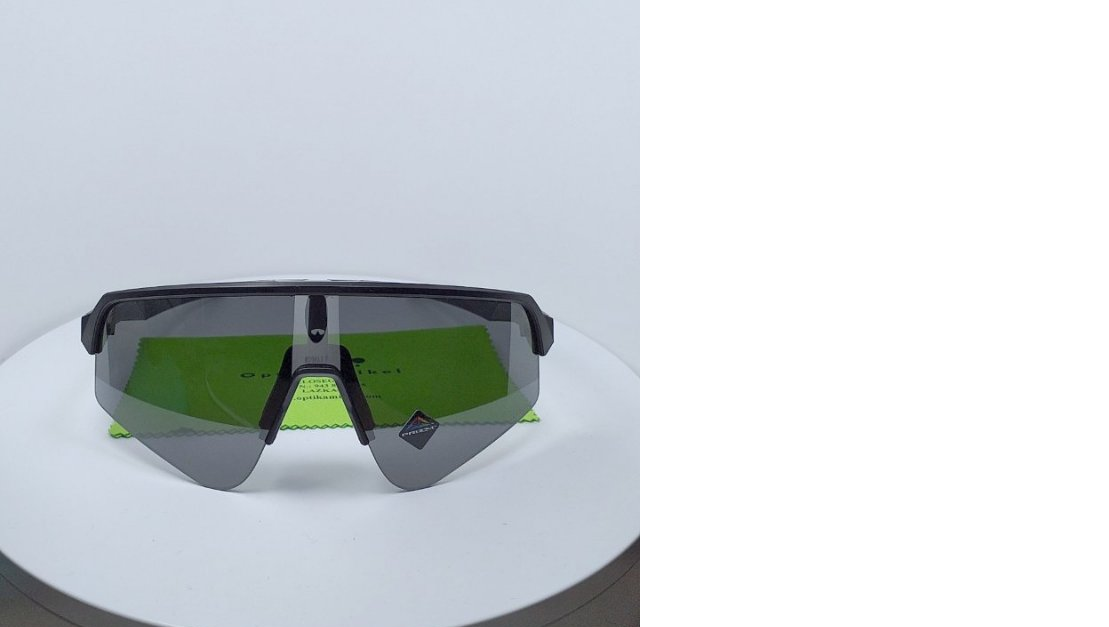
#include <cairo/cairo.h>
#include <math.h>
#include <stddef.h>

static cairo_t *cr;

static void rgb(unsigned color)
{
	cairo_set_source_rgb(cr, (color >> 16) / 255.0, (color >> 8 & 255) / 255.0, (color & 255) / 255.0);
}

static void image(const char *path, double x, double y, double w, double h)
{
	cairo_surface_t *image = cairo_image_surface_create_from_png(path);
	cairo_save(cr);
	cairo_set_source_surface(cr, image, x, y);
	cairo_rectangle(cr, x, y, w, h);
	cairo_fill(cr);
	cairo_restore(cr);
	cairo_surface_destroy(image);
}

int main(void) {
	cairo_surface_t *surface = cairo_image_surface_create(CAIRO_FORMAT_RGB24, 1109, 627);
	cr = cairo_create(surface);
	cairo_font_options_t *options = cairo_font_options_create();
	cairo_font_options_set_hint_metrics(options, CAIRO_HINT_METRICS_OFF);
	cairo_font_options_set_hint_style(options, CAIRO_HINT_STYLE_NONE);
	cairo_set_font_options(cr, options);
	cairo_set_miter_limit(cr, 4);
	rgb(0xffffff);
	cairo_paint(cr);
	image("img/1.png", 0, 0, 640, 627);
	cairo_surface_write_to_png(surface, "page.png");
	cairo_font_options_destroy(options);
	cairo_destroy(cr);
	cairo_surface_destroy(surface);
	return 0;
}
